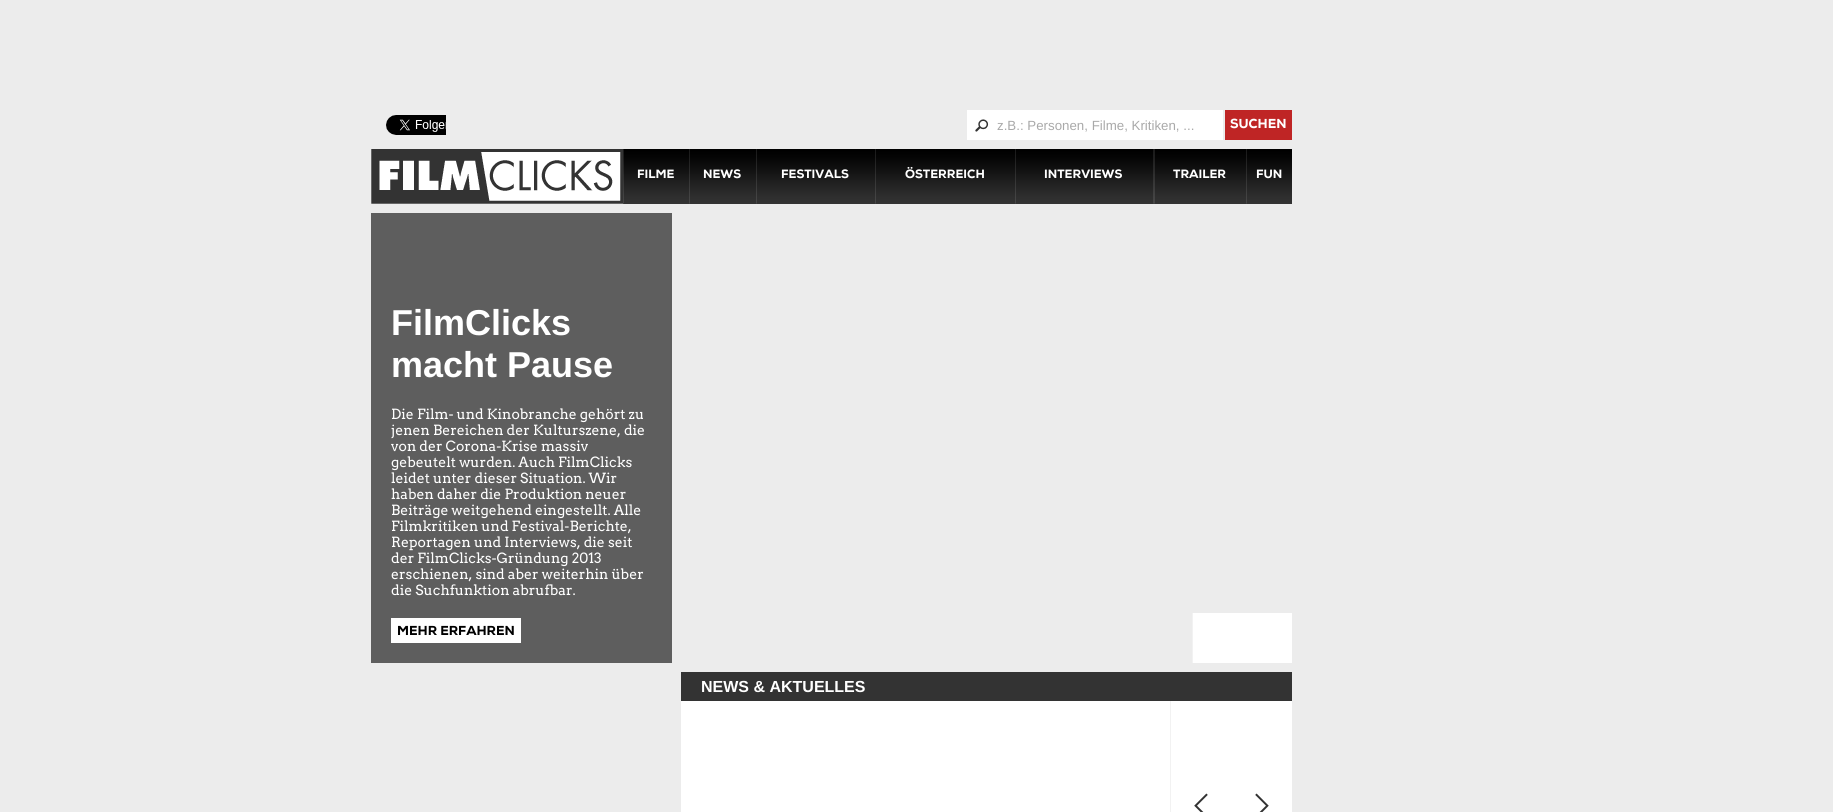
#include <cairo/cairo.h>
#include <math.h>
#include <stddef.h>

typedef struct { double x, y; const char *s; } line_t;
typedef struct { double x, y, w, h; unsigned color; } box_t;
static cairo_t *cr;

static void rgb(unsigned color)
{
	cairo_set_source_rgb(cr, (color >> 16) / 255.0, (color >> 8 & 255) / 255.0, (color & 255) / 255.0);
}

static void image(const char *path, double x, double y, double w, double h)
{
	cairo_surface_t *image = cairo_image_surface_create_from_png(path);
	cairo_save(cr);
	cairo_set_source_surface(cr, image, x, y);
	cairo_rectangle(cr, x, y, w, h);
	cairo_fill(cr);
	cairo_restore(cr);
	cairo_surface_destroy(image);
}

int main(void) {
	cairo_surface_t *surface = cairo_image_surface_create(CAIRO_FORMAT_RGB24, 1833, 812);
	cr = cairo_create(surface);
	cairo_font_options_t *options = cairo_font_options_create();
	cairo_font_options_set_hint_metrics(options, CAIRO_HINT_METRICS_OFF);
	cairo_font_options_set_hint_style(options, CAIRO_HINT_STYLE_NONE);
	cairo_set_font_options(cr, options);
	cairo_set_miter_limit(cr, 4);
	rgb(0xececec);
	cairo_paint(cr);
	image("img/1.png", 386, 115, 60, 20);
	rgb(0xffffff);
	cairo_rectangle(cr, 967, 110, 256, 30);
	cairo_fill(cr);
	image("img/2.png", 975, 119, 14, 13);
	rgb(0xbf2525);
	cairo_rectangle(cr, 1225, 110, 67, 30);
	cairo_fill(cr);
	rgb(0xffffff);
	cairo_rectangle(cr, 371, 149, 252, 55);
	cairo_fill(cr);
	image("img/3.png", 371, 149, 252, 55);
	image("img/4.png", 624, 149, 668, 55);
	image("img/5.png", 623, 149, 1, 55);
	image("img/5.png", 689, 149, 1, 55);
	image("img/5.png", 756, 149, 1, 55);
	image("img/5.png", 875, 149, 1, 55);
	image("img/5.png", 1015, 149, 1, 55);
	image("img/6.png", 1153, 149, 2, 55);
	image("img/5.png", 1246, 149, 1, 55);
	{
		static const box_t items[] = {
			{371, 213, 301, 450, 0x5e5e5e},
			{391, 618, 130, 25, 0xffffff},
			{1193, 613, 99, 50, 0xffffff},
			{1192, 613, 1, 50, 0xf2f2f2},
			{681, 701, 611, 111, 0xffffff},
			{681, 672, 611, 29, 0x333333},
			{1170, 701, 1, 111, 0xf2f2f2},
		};
		for (size_t i = 0; i < sizeof items / sizeof *items; i++) {
			rgb(items[i].color);
			cairo_rectangle(cr, items[i].x, items[i].y, items[i].w, items[i].h);
			cairo_fill(cr);
		}
	}
	image("img/7.png", 1194, 793, 14, 19);
	image("img/8.png", 1255, 793, 14, 19);
	cairo_select_font_face(cr, "Liberation Sans", CAIRO_FONT_SLANT_NORMAL, CAIRO_FONT_WEIGHT_NORMAL);
	cairo_set_font_size(cr, 13.3);
	rgb(0xa9a9a9);
	cairo_move_to(cr, 997, 130);
	cairo_show_text(cr, "z.B.: Personen, Filme, Kritiken, ...");
	cairo_select_font_face(cr, "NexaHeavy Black", CAIRO_FONT_SLANT_NORMAL, CAIRO_FONT_WEIGHT_NORMAL);
	cairo_set_font_size(cr, 13);
	rgb(0xffffff);
	cairo_move_to(cr, 1230, 128);
	cairo_show_text(cr, "SUCHEN");
	cairo_set_font_size(cr, 12);
	{
		static const line_t items[] = {
			{637, 178, "FILME"},
			{703, 178, "NEWS"},
			{781, 178, "FESTIVALS"},
			{905, 178, "ÖSTERREICH"},
			{1044, 178, "INTERVIEWS"},
			{1173, 178, "TRAILER"},
			{1256, 178, "FUN"},
		};
		for (size_t i = 0; i < sizeof items / sizeof *items; i++) {
			cairo_move_to(cr, items[i].x, items[i].y);
			cairo_show_text(cr, items[i].s);
		}
	}
	cairo_select_font_face(cr, "Liberation Sans", CAIRO_FONT_SLANT_NORMAL, CAIRO_FONT_WEIGHT_BOLD);
	cairo_set_font_size(cr, 36);
	cairo_move_to(cr, 391, 335);
	cairo_show_text(cr, "FilmClicks");
	cairo_move_to(cr, 391, 377);
	cairo_show_text(cr, "macht Pause");
	cairo_select_font_face(cr, "Arvo", CAIRO_FONT_SLANT_NORMAL, CAIRO_FONT_WEIGHT_NORMAL);
	cairo_set_font_size(cr, 14);
	{
		static const line_t items[] = {
			{391, 419, "Die Film- und Kinobranche gehört zu"},
			{391, 435, "jenen Bereichen der Kulturszene, die"},
			{391, 451, "von der Corona-Krise massiv"},
			{391, 467, "gebeutelt wurden. Auch FilmClicks"},
			{391, 483, "leidet unter dieser Situation. Wir"},
			{391, 499, "haben daher die Produktion neuer"},
			{391, 515, "Beiträge weitgehend eingestellt. Alle"},
			{391, 531, "Filmkritiken und Festival-Berichte,"},
			{391, 547, "Reportagen und Interviews, die seit"},
			{391, 563, "der FilmClicks-Gründung 2013"},
			{391, 579, "erschienen, sind aber weiterhin über"},
			{391, 595, "die Suchfunktion abrufbar."},
		};
		for (size_t i = 0; i < sizeof items / sizeof *items; i++) {
			cairo_move_to(cr, items[i].x, items[i].y);
			cairo_show_text(cr, items[i].s);
		}
	}
	cairo_select_font_face(cr, "NexaHeavy Black", CAIRO_FONT_SLANT_NORMAL, CAIRO_FONT_WEIGHT_NORMAL);
	cairo_set_font_size(cr, 13);
	rgb(0x000000);
	cairo_move_to(cr, 397, 635);
	cairo_show_text(cr, "MEHR ERFAHREN");
	cairo_select_font_face(cr, "Liberation Sans", CAIRO_FONT_SLANT_NORMAL, CAIRO_FONT_WEIGHT_BOLD);
	cairo_set_font_size(cr, 16);
	rgb(0xffffff);
	cairo_move_to(cr, 701, 692);
	cairo_show_text(cr, "NEWS & AKTUELLES");
	cairo_surface_write_to_png(surface, "page.png");
	cairo_font_options_destroy(options);
	cairo_destroy(cr);
	cairo_surface_destroy(surface);
	return 0;
}
